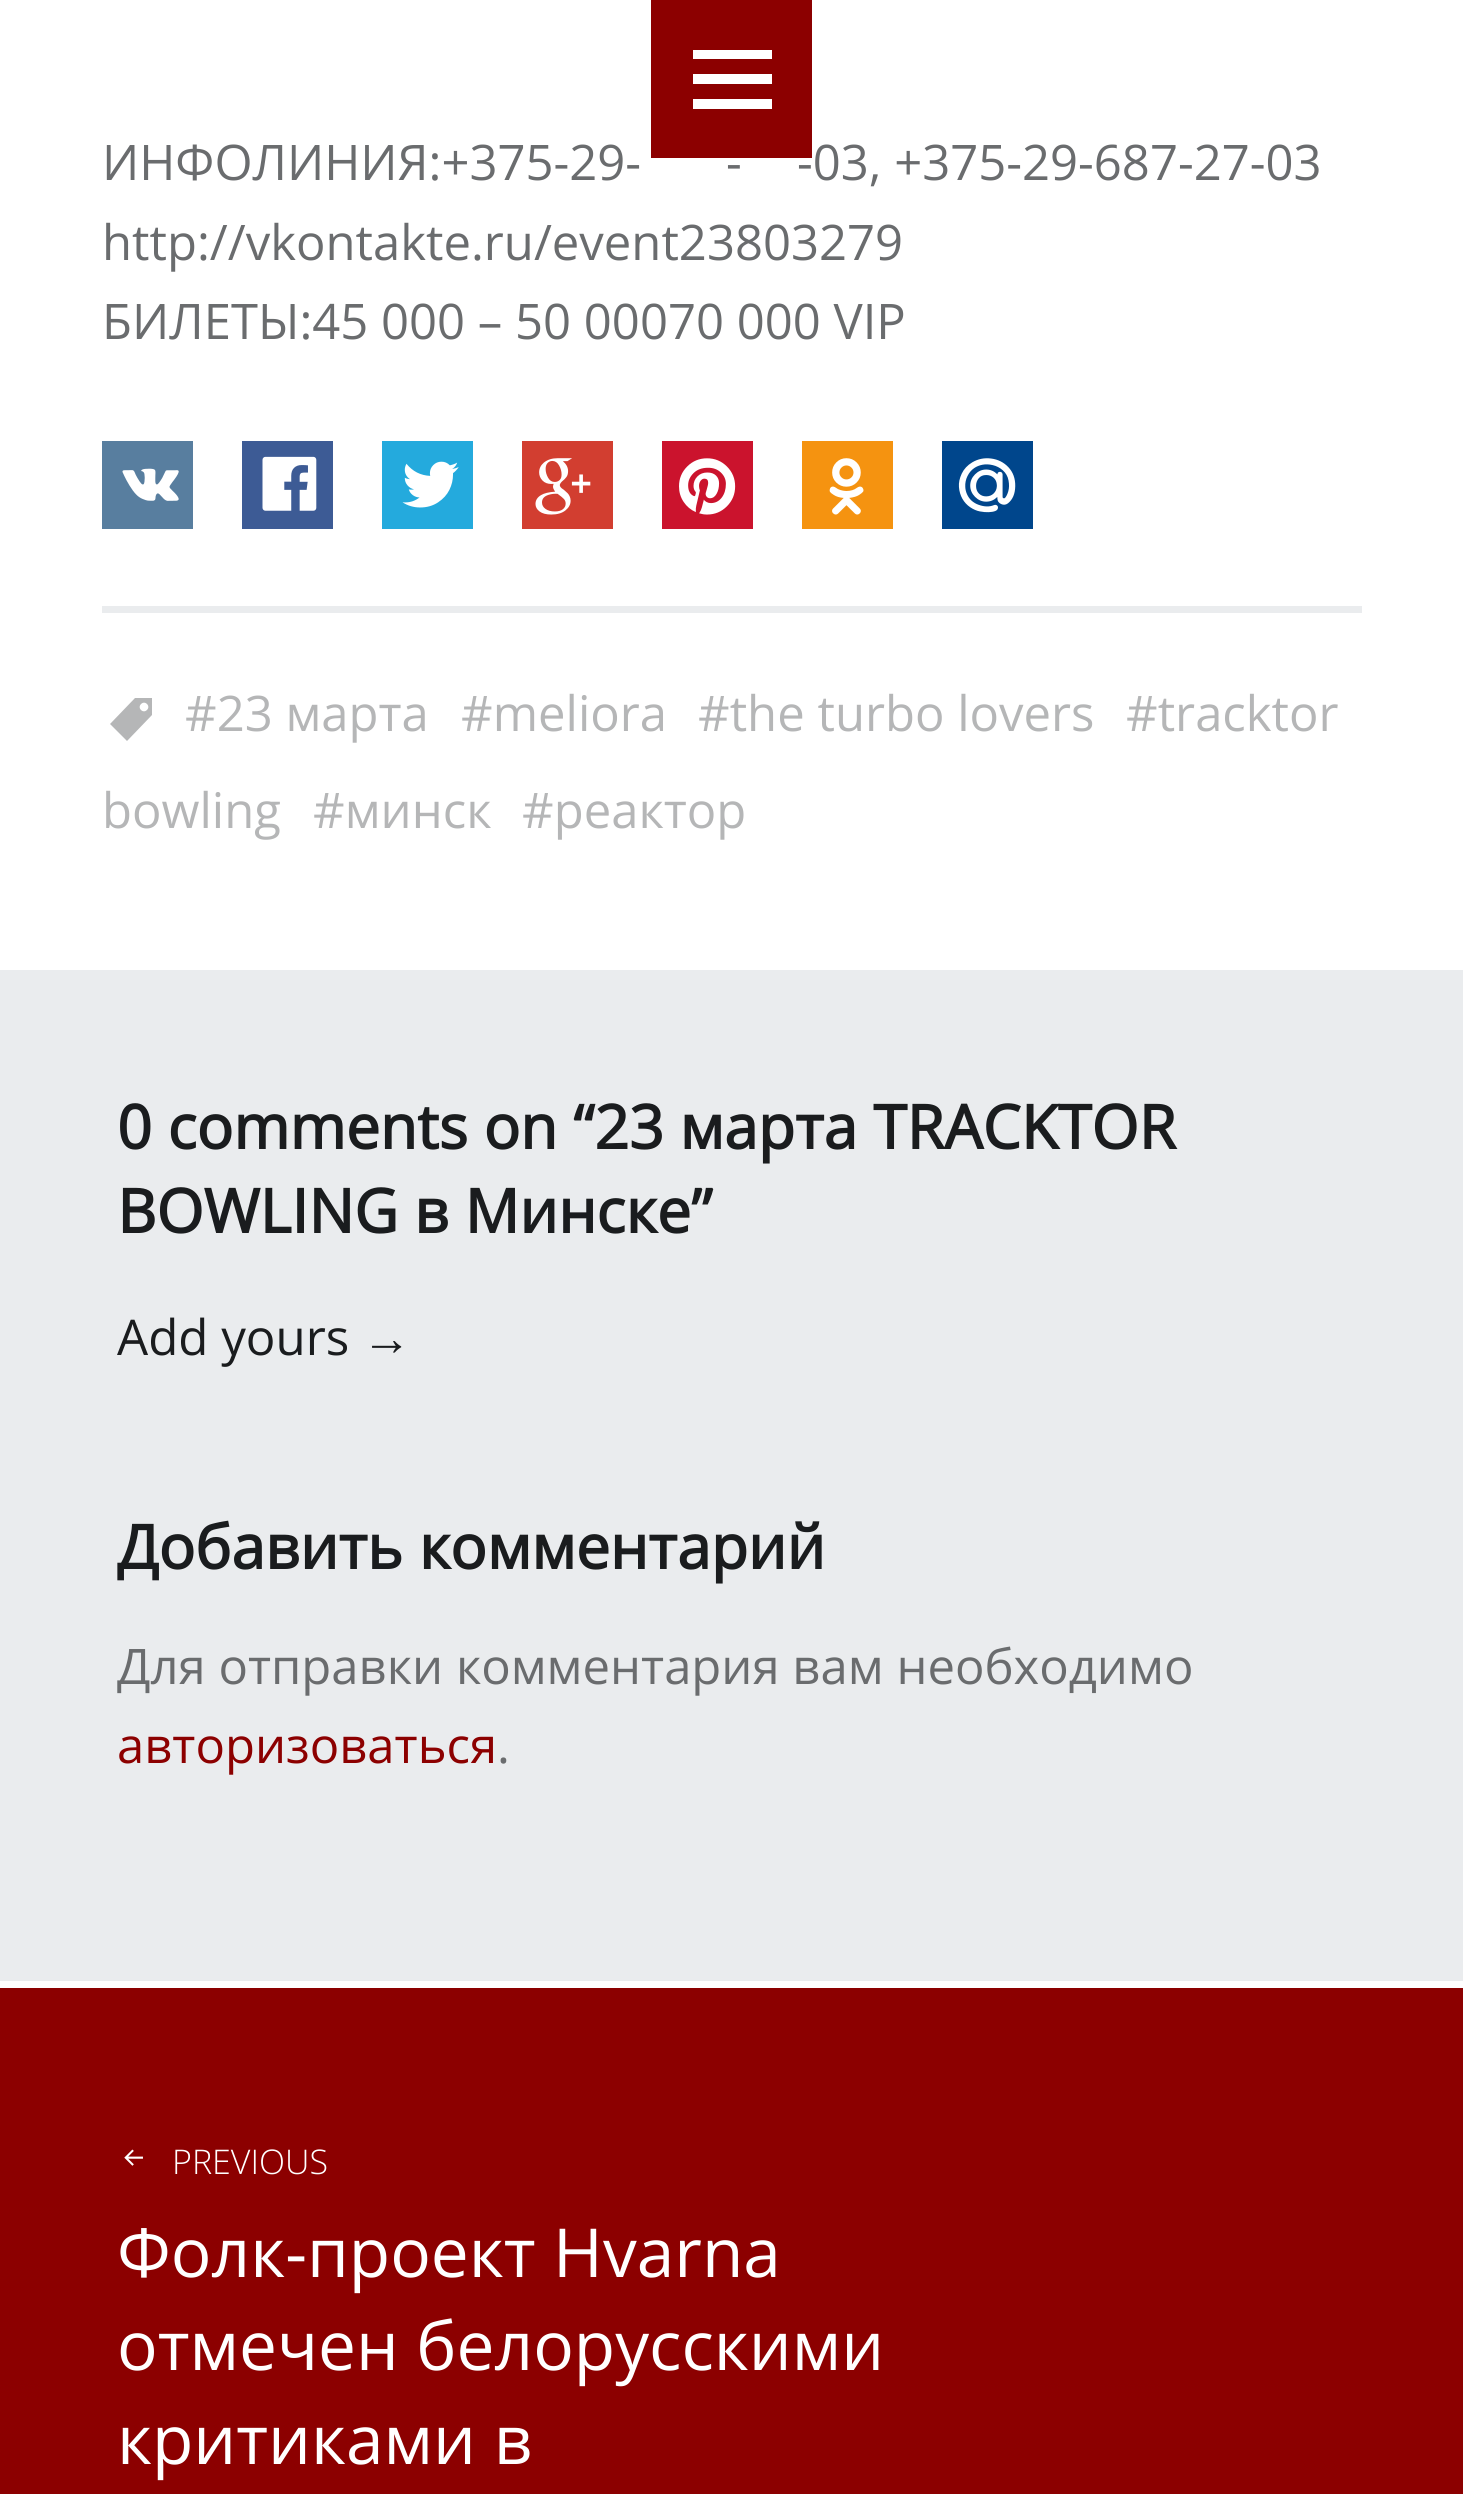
#include <cairo/cairo.h>
#include <math.h>
#include <stddef.h>

typedef struct { double x, y; const char *s; } line_t;
static cairo_t *cr;

static void rgb(unsigned color)
{
	cairo_set_source_rgb(cr, (color >> 16) / 255.0, (color >> 8 & 255) / 255.0, (color & 255) / 255.0);
}

static void image(const char *path, double x, double y, double w, double h)
{
	cairo_surface_t *image = cairo_image_surface_create_from_png(path);
	cairo_save(cr);
	cairo_set_source_surface(cr, image, x, y);
	cairo_rectangle(cr, x, y, w, h);
	cairo_fill(cr);
	cairo_restore(cr);
	cairo_surface_destroy(image);
}

int main(void) {
	cairo_surface_t *surface = cairo_image_surface_create(CAIRO_FORMAT_RGB24, 1463, 2494);
	cr = cairo_create(surface);
	cairo_font_options_t *options = cairo_font_options_create();
	cairo_font_options_set_hint_metrics(options, CAIRO_HINT_METRICS_OFF);
	cairo_font_options_set_hint_style(options, CAIRO_HINT_STYLE_NONE);
	cairo_set_font_options(cr, options);
	cairo_set_miter_limit(cr, 4);
	rgb(0xffffff);
	cairo_paint(cr);
	rgb(0x587e9f);
	cairo_rectangle(cr, 102, 441, 91, 88);
	cairo_fill(cr);
	image("img/1.png", 122, 468, 57, 33);
	rgb(0x3d5b95);
	cairo_rectangle(cr, 242, 441, 91, 88);
	cairo_fill(cr);
	image("img/2.png", 262, 456, 55, 55);
	rgb(0x24aadd);
	cairo_rectangle(cr, 382, 441, 91, 88);
	cairo_fill(cr);
	image("img/3.png", 402, 461, 57, 47);
	rgb(0xd23e30);
	cairo_rectangle(cr, 522, 441, 91, 88);
	cairo_fill(cr);
	image("img/4.png", 535, 458, 56, 57);
	rgb(0xcb132d);
	cairo_rectangle(cr, 662, 441, 91, 88);
	cairo_fill(cr);
	image("img/5.png", 679, 458, 57, 57);
	rgb(0xf59310);
	cairo_rectangle(cr, 802, 441, 91, 88);
	cairo_fill(cr);
	image("img/6.png", 829, 458, 35, 57);
	rgb(0x00468c);
	cairo_rectangle(cr, 942, 441, 91, 88);
	cairo_fill(cr);
	image("img/7.png", 958, 458, 58, 55);
	rgb(0xeaecee);
	cairo_rectangle(cr, 102, 606, 1260, 7);
	cairo_fill(cr);
	rgb(0xb5b6b7);
	cairo_new_path(cr);
	cairo_move_to(cr, 135, 698);
	cairo_line_to(cr, 152, 698);
	cairo_line_to(cr, 152, 715);
	cairo_line_to(cr, 127, 741);
	cairo_line_to(cr, 110, 724);
	cairo_close_path(cr);
	cairo_move_to(cr, 141, 710);
	cairo_curve_to(cr, 145, 714, 151, 708, 147, 704);
	cairo_curve_to(cr, 143, 700, 137, 706, 141, 710);
	cairo_close_path(cr);
	cairo_fill(cr);
	rgb(0xeaecee);
	cairo_rectangle(cr, 0, 970, 1463, 1011);
	cairo_fill(cr);
	rgb(0x8c0000);
	cairo_rectangle(cr, 0, 1988, 1463, 506);
	cairo_fill(cr);
	image("img/8.png", 124, 2149, 19, 17);
	cairo_select_font_face(cr, "Open Sans", CAIRO_FONT_SLANT_NORMAL, CAIRO_FONT_WEIGHT_NORMAL);
	cairo_set_font_size(cr, 49);
	rgb(0x6a6c6e);
	{
		static const line_t items[] = {
			{102, 180, "ИНФОЛИНИЯ:+375-29-"},
			{726, 180, "-"},
			{797, 180, "-03, +375-29-687-27-03"},
		};
		for (size_t i = 0; i < sizeof items / sizeof *items; i++) {
			cairo_move_to(cr, items[i].x, items[i].y);
			cairo_show_text(cr, items[i].s);
		}
	}
	rgb(0x8c0000);
	cairo_rectangle(cr, 651, 0, 161, 158);
	cairo_fill(cr);
	rgb(0xffffff);
	cairo_new_path(cr);
	cairo_move_to(cr, 693, 109);
	cairo_line_to(cr, 693, 99);
	cairo_line_to(cr, 772, 99);
	cairo_line_to(cr, 772, 109);
	cairo_close_path(cr);
	cairo_move_to(cr, 693, 50);
	cairo_line_to(cr, 772, 50);
	cairo_line_to(cr, 772, 59);
	cairo_line_to(cr, 693, 59);
	cairo_close_path(cr);
	cairo_move_to(cr, 693, 84);
	cairo_line_to(cr, 693, 74);
	cairo_line_to(cr, 772, 74);
	cairo_line_to(cr, 772, 84);
	cairo_close_path(cr);
	cairo_fill(cr);
	rgb(0x6a6c6e);
	cairo_move_to(cr, 102, 260);
	cairo_show_text(cr, "http://vkontakte.ru/event23803279");
	cairo_move_to(cr, 102, 339);
	cairo_show_text(cr, "БИЛЕТЫ:45 000 – 50 00070 000 VIP");
	rgb(0xb5b6b7);
	{
		static const line_t items[] = {
			{185, 731, "#23 марта"},
			{461, 731, "#meliora"},
			{698, 731, "#the turbo lovers"},
			{1126, 731, "#tracktor"},
			{102, 828, "bowling"},
			{313, 828, "#минск"},
			{522, 828, "#реактор"},
		};
		for (size_t i = 0; i < sizeof items / sizeof *items; i++) {
			cairo_move_to(cr, items[i].x, items[i].y);
			cairo_show_text(cr, items[i].s);
		}
	}
	cairo_select_font_face(cr, "Open Sans", CAIRO_FONT_SLANT_NORMAL, CAIRO_FONT_WEIGHT_BOLD);
	cairo_set_font_size(cr, 60.75);
	rgb(0x1a1c1e);
	cairo_move_to(cr, 117, 1149);
	cairo_show_text(cr, "0 comments on “23 марта TRACKTOR");
	cairo_move_to(cr, 117, 1233);
	cairo_show_text(cr, "BOWLING в Минске”");
	cairo_select_font_face(cr, "Open Sans", CAIRO_FONT_SLANT_NORMAL, CAIRO_FONT_WEIGHT_NORMAL);
	cairo_set_font_size(cr, 49.25);
	cairo_move_to(cr, 117, 1355);
	cairo_show_text(cr, "Add yours");
	cairo_select_font_face(cr, "Liberation Sans", CAIRO_FONT_SLANT_NORMAL, CAIRO_FONT_WEIGHT_NORMAL);
	cairo_move_to(cr, 362, 1355);
	cairo_show_text(cr, "→");
	cairo_select_font_face(cr, "Open Sans", CAIRO_FONT_SLANT_NORMAL, CAIRO_FONT_WEIGHT_BOLD);
	cairo_set_font_size(cr, 60.75);
	cairo_move_to(cr, 117, 1569);
	cairo_show_text(cr, "Добавить комментарий");
	cairo_select_font_face(cr, "Open Sans", CAIRO_FONT_SLANT_NORMAL, CAIRO_FONT_WEIGHT_NORMAL);
	cairo_set_font_size(cr, 49);
	rgb(0x6a6c6e);
	cairo_move_to(cr, 117, 1684);
	cairo_show_text(cr, "Для отправки комментария вам необходимо");
	rgb(0x8c0000);
	cairo_move_to(cr, 117, 1763);
	cairo_show_text(cr, "авторизоваться");
	rgb(0x6a6c6e);
	cairo_move_to(cr, 497, 1763);
	cairo_show_text(cr, ".");
	cairo_select_font_face(cr, "Open Sans Light", CAIRO_FONT_SLANT_NORMAL, CAIRO_FONT_WEIGHT_NORMAL);
	cairo_set_font_size(cr, 34);
	rgb(0xffffff);
	cairo_move_to(cr, 172, 2174);
	cairo_show_text(cr, "PREVIOUS");
	cairo_select_font_face(cr, "Open Sans", CAIRO_FONT_SLANT_NORMAL, CAIRO_FONT_WEIGHT_NORMAL);
	cairo_set_font_size(cr, 67.6);
	{
		static const line_t items[] = {
			{117, 2277, "Фолк-проект Hvarna"},
			{117, 2370, "отмечен белорусскими"},
			{117, 2464, "критиками в"},
		};
		for (size_t i = 0; i < sizeof items / sizeof *items; i++) {
			cairo_move_to(cr, items[i].x, items[i].y);
			cairo_show_text(cr, items[i].s);
		}
	}
	cairo_surface_write_to_png(surface, "page.png");
	cairo_font_options_destroy(options);
	cairo_destroy(cr);
	cairo_surface_destroy(surface);
	return 0;
}
